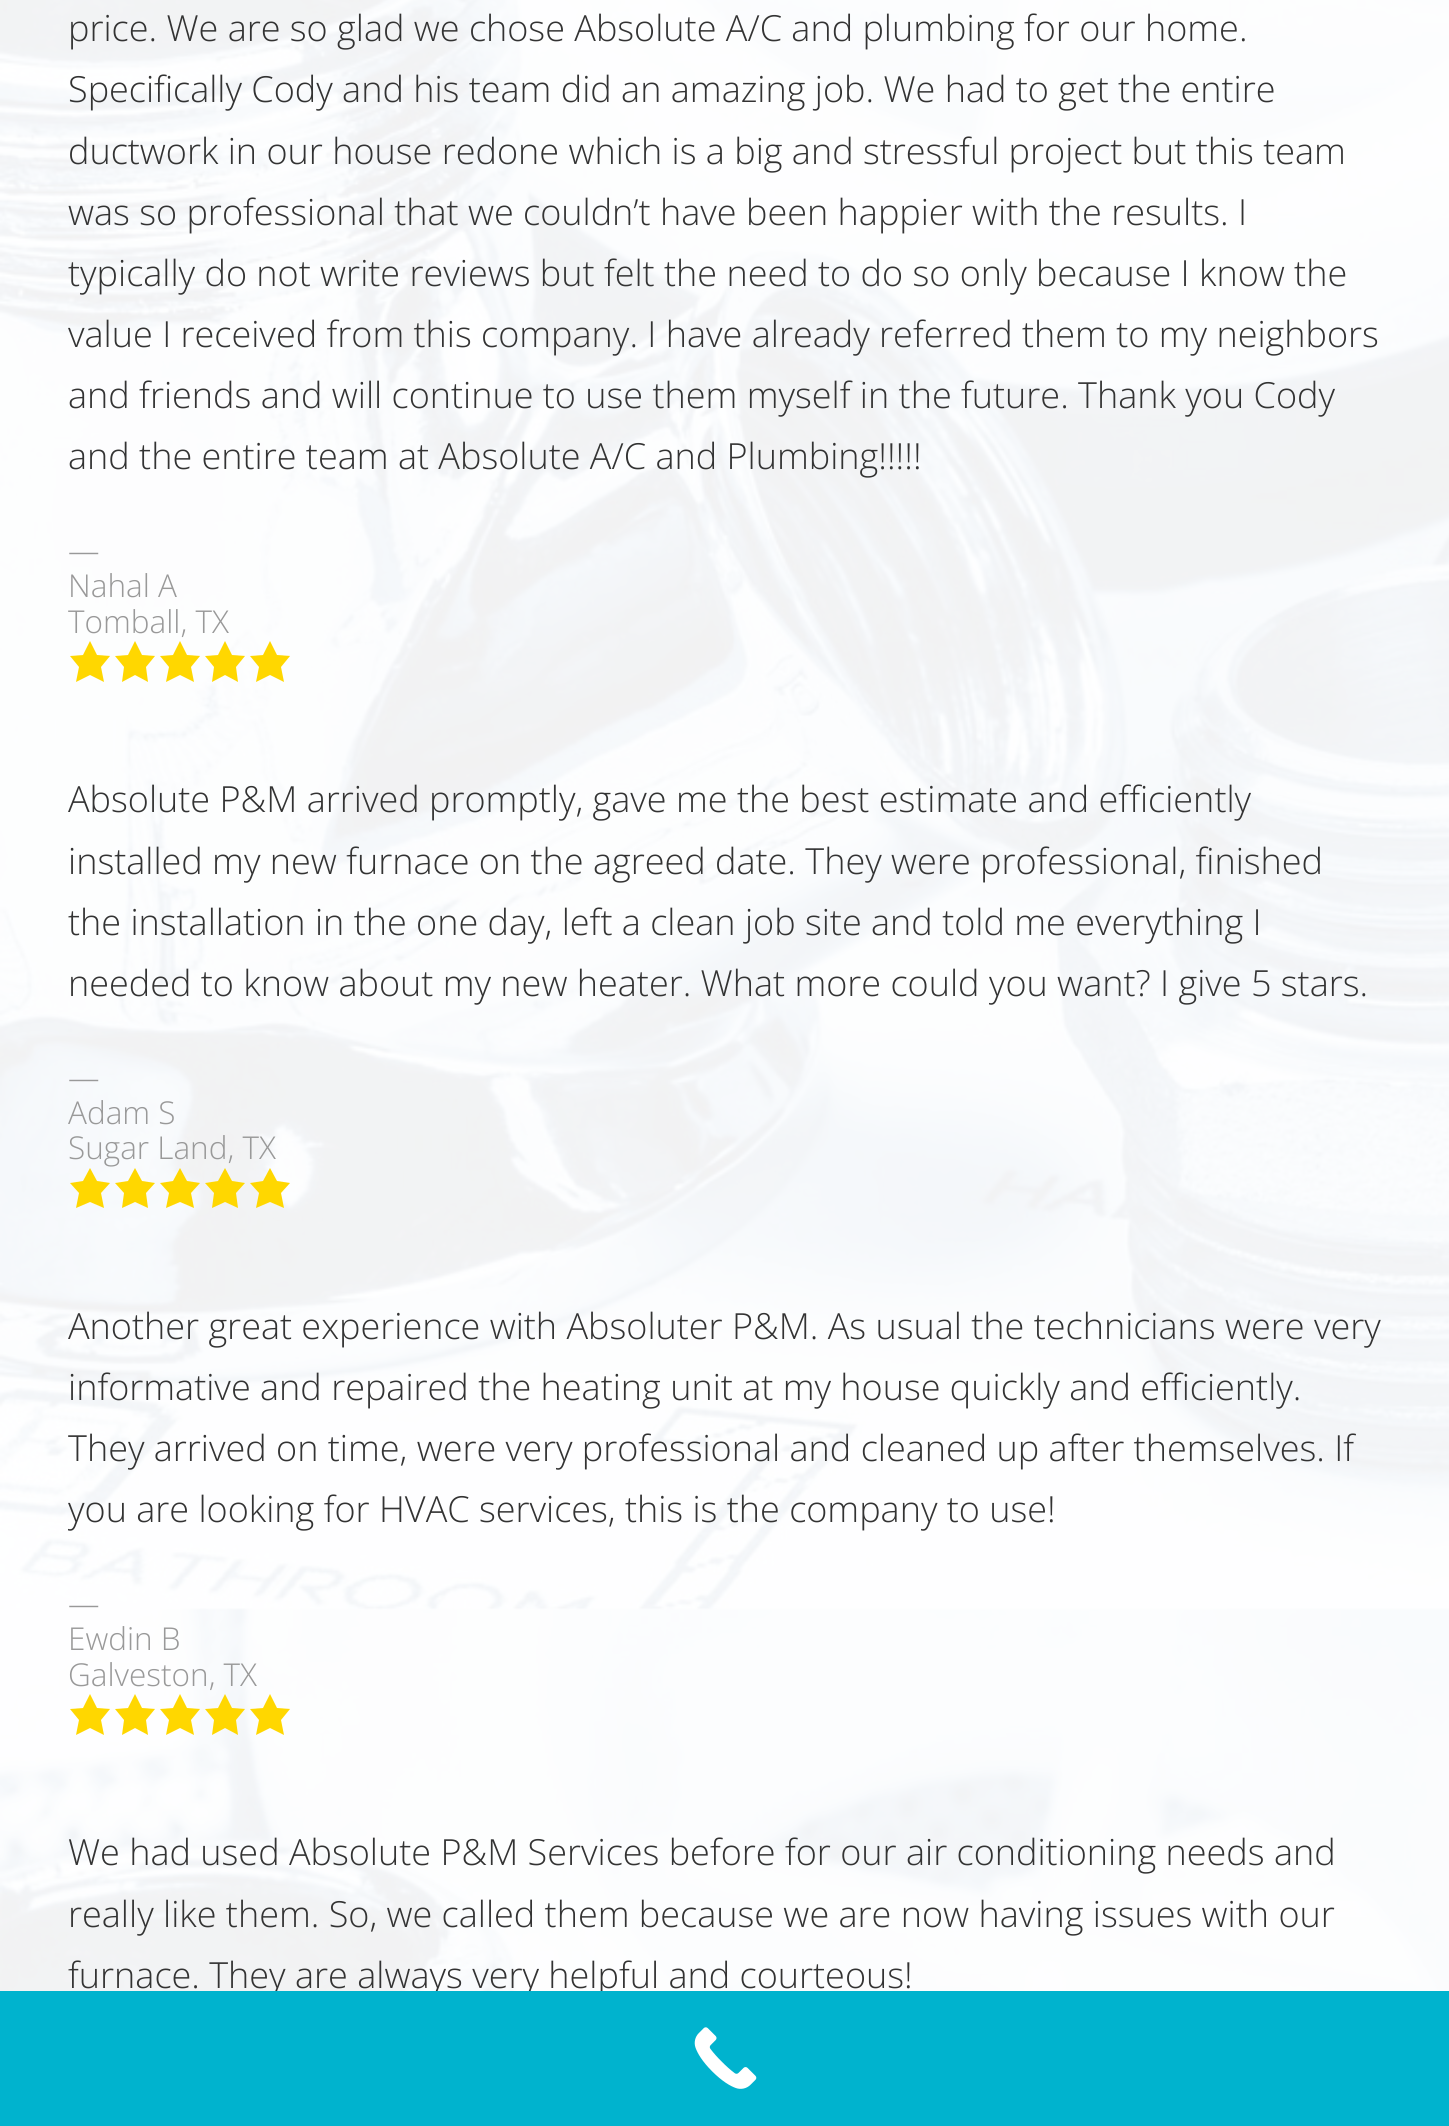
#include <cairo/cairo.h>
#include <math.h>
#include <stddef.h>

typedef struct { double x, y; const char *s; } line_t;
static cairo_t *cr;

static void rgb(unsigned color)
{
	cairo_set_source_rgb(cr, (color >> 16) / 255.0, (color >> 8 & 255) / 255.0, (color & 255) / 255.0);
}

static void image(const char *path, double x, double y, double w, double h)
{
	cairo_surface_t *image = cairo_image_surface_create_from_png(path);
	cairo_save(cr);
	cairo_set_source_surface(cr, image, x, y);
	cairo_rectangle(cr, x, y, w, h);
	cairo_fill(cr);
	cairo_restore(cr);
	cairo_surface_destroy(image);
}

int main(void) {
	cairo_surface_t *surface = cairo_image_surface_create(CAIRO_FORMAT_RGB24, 1449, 2126);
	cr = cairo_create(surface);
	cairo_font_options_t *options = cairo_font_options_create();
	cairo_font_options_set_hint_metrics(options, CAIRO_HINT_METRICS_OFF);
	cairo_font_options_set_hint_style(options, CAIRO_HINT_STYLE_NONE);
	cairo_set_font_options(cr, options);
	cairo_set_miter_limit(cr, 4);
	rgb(0xffffff);
	cairo_paint(cr);
	image("img/1.png", 0, 0, 1449, 1991);
	rgb(0xffd700);
	cairo_new_path(cr);
	cairo_move_to(cr, 90, 641);
	cairo_line_to(cr, 97, 655);
	cairo_line_to(cr, 110, 656);
	cairo_line_to(cr, 101, 667);
	cairo_line_to(cr, 104, 682);
	cairo_line_to(cr, 90, 675);
	cairo_line_to(cr, 76, 682);
	cairo_line_to(cr, 79, 667);
	cairo_line_to(cr, 70, 656);
	cairo_line_to(cr, 83, 655);
	cairo_close_path(cr);
	cairo_fill(cr);
	cairo_new_path(cr);
	cairo_move_to(cr, 135, 641);
	cairo_line_to(cr, 142, 655);
	cairo_line_to(cr, 155, 656);
	cairo_line_to(cr, 146, 667);
	cairo_line_to(cr, 148, 682);
	cairo_line_to(cr, 135, 675);
	cairo_line_to(cr, 122, 682);
	cairo_line_to(cr, 124, 667);
	cairo_line_to(cr, 115, 656);
	cairo_line_to(cr, 128, 655);
	cairo_close_path(cr);
	cairo_fill(cr);
	cairo_new_path(cr);
	cairo_move_to(cr, 180, 641);
	cairo_line_to(cr, 187, 655);
	cairo_line_to(cr, 200, 656);
	cairo_line_to(cr, 191, 667);
	cairo_line_to(cr, 194, 682);
	cairo_line_to(cr, 180, 675);
	cairo_line_to(cr, 166, 682);
	cairo_line_to(cr, 169, 667);
	cairo_line_to(cr, 160, 656);
	cairo_line_to(cr, 173, 655);
	cairo_close_path(cr);
	cairo_fill(cr);
	cairo_new_path(cr);
	cairo_move_to(cr, 225, 641);
	cairo_line_to(cr, 232, 655);
	cairo_line_to(cr, 245, 656);
	cairo_line_to(cr, 236, 667);
	cairo_line_to(cr, 238, 682);
	cairo_line_to(cr, 225, 675);
	cairo_line_to(cr, 212, 682);
	cairo_line_to(cr, 214, 667);
	cairo_line_to(cr, 205, 656);
	cairo_line_to(cr, 218, 655);
	cairo_close_path(cr);
	cairo_fill(cr);
	cairo_new_path(cr);
	cairo_move_to(cr, 270, 641);
	cairo_line_to(cr, 277, 655);
	cairo_line_to(cr, 290, 656);
	cairo_line_to(cr, 281, 667);
	cairo_line_to(cr, 284, 682);
	cairo_line_to(cr, 270, 675);
	cairo_line_to(cr, 256, 682);
	cairo_line_to(cr, 259, 667);
	cairo_line_to(cr, 250, 656);
	cairo_line_to(cr, 263, 655);
	cairo_close_path(cr);
	cairo_fill(cr);
	cairo_new_path(cr);
	cairo_move_to(cr, 90, 1168);
	cairo_line_to(cr, 97, 1181);
	cairo_line_to(cr, 110, 1183);
	cairo_line_to(cr, 101, 1193);
	cairo_line_to(cr, 104, 1208);
	cairo_line_to(cr, 90, 1202);
	cairo_line_to(cr, 76, 1208);
	cairo_line_to(cr, 79, 1193);
	cairo_line_to(cr, 70, 1183);
	cairo_line_to(cr, 83, 1181);
	cairo_close_path(cr);
	cairo_fill(cr);
	cairo_new_path(cr);
	cairo_move_to(cr, 135, 1168);
	cairo_line_to(cr, 142, 1181);
	cairo_line_to(cr, 155, 1183);
	cairo_line_to(cr, 146, 1193);
	cairo_line_to(cr, 148, 1208);
	cairo_line_to(cr, 135, 1202);
	cairo_line_to(cr, 122, 1208);
	cairo_line_to(cr, 124, 1193);
	cairo_line_to(cr, 115, 1183);
	cairo_line_to(cr, 128, 1181);
	cairo_close_path(cr);
	cairo_fill(cr);
	cairo_new_path(cr);
	cairo_move_to(cr, 180, 1168);
	cairo_line_to(cr, 187, 1181);
	cairo_line_to(cr, 200, 1183);
	cairo_line_to(cr, 191, 1193);
	cairo_line_to(cr, 194, 1208);
	cairo_line_to(cr, 180, 1202);
	cairo_line_to(cr, 166, 1208);
	cairo_line_to(cr, 169, 1193);
	cairo_line_to(cr, 160, 1183);
	cairo_line_to(cr, 173, 1181);
	cairo_close_path(cr);
	cairo_fill(cr);
	cairo_new_path(cr);
	cairo_move_to(cr, 225, 1168);
	cairo_line_to(cr, 232, 1181);
	cairo_line_to(cr, 245, 1183);
	cairo_line_to(cr, 236, 1193);
	cairo_line_to(cr, 238, 1208);
	cairo_line_to(cr, 225, 1202);
	cairo_line_to(cr, 212, 1208);
	cairo_line_to(cr, 214, 1193);
	cairo_line_to(cr, 205, 1183);
	cairo_line_to(cr, 218, 1181);
	cairo_close_path(cr);
	cairo_fill(cr);
	cairo_new_path(cr);
	cairo_move_to(cr, 270, 1168);
	cairo_line_to(cr, 277, 1181);
	cairo_line_to(cr, 290, 1183);
	cairo_line_to(cr, 281, 1193);
	cairo_line_to(cr, 284, 1208);
	cairo_line_to(cr, 270, 1202);
	cairo_line_to(cr, 256, 1208);
	cairo_line_to(cr, 259, 1193);
	cairo_line_to(cr, 250, 1183);
	cairo_line_to(cr, 263, 1181);
	cairo_close_path(cr);
	cairo_fill(cr);
	cairo_new_path(cr);
	cairo_move_to(cr, 90, 1694);
	cairo_line_to(cr, 97, 1708);
	cairo_line_to(cr, 110, 1709);
	cairo_line_to(cr, 101, 1720);
	cairo_line_to(cr, 104, 1735);
	cairo_line_to(cr, 90, 1728);
	cairo_line_to(cr, 76, 1735);
	cairo_line_to(cr, 79, 1720);
	cairo_line_to(cr, 70, 1709);
	cairo_line_to(cr, 83, 1708);
	cairo_close_path(cr);
	cairo_fill(cr);
	cairo_new_path(cr);
	cairo_move_to(cr, 135, 1694);
	cairo_line_to(cr, 142, 1708);
	cairo_line_to(cr, 155, 1709);
	cairo_line_to(cr, 146, 1720);
	cairo_line_to(cr, 148, 1735);
	cairo_line_to(cr, 135, 1728);
	cairo_line_to(cr, 122, 1735);
	cairo_line_to(cr, 124, 1720);
	cairo_line_to(cr, 115, 1709);
	cairo_line_to(cr, 128, 1708);
	cairo_close_path(cr);
	cairo_fill(cr);
	cairo_new_path(cr);
	cairo_move_to(cr, 180, 1694);
	cairo_line_to(cr, 187, 1708);
	cairo_line_to(cr, 200, 1709);
	cairo_line_to(cr, 191, 1720);
	cairo_line_to(cr, 194, 1735);
	cairo_line_to(cr, 180, 1728);
	cairo_line_to(cr, 166, 1735);
	cairo_line_to(cr, 169, 1720);
	cairo_line_to(cr, 160, 1709);
	cairo_line_to(cr, 173, 1708);
	cairo_close_path(cr);
	cairo_fill(cr);
	cairo_new_path(cr);
	cairo_move_to(cr, 225, 1694);
	cairo_line_to(cr, 232, 1708);
	cairo_line_to(cr, 245, 1709);
	cairo_line_to(cr, 236, 1720);
	cairo_line_to(cr, 238, 1735);
	cairo_line_to(cr, 225, 1728);
	cairo_line_to(cr, 212, 1735);
	cairo_line_to(cr, 214, 1720);
	cairo_line_to(cr, 205, 1709);
	cairo_line_to(cr, 218, 1708);
	cairo_close_path(cr);
	cairo_fill(cr);
	cairo_new_path(cr);
	cairo_move_to(cr, 270, 1694);
	cairo_line_to(cr, 277, 1708);
	cairo_line_to(cr, 290, 1709);
	cairo_line_to(cr, 281, 1720);
	cairo_line_to(cr, 284, 1735);
	cairo_line_to(cr, 270, 1728);
	cairo_line_to(cr, 256, 1735);
	cairo_line_to(cr, 259, 1720);
	cairo_line_to(cr, 250, 1709);
	cairo_line_to(cr, 263, 1708);
	cairo_close_path(cr);
	cairo_fill(cr);
	cairo_select_font_face(cr, "Open Sans Light", CAIRO_FONT_SLANT_NORMAL, CAIRO_FONT_WEIGHT_NORMAL);
	cairo_set_font_size(cr, 36);
	rgb(0x333333);
	{
		static const line_t items[] = {
			{68, 41, "price. We are so glad we chose Absolute A/C and plumbing for our home."},
			{68, 102, "Specifically Cody and his team did an amazing job. We had to get the entire"},
			{68, 164, "ductwork in our house redone which is a big and stressful project but this team"},
			{68, 225, "was so professional that we couldn’t have been happier with the results. I"},
			{68, 286, "typically do not write reviews but felt the need to do so only because I know the"},
			{68, 347, "value I received from this company. I have already referred them to my neighbors"},
			{68, 408, "and friends and will continue to use them myself in the future. Thank you Cody"},
			{68, 469, "and the entire team at Absolute A/C and Plumbing!!!!!"},
		};
		for (size_t i = 0; i < sizeof items / sizeof *items; i++) {
			cairo_move_to(cr, items[i].x, items[i].y);
			cairo_show_text(cr, items[i].s);
		}
	}
	cairo_set_font_size(cr, 31.5);
	rgb(0x999999);
	{
		static const line_t items[] = {
			{68, 562, "—"},
			{68, 597, "Nahal A"},
			{68, 633, "Tomball, TX"},
		};
		for (size_t i = 0; i < sizeof items / sizeof *items; i++) {
			cairo_move_to(cr, items[i].x, items[i].y);
			cairo_show_text(cr, items[i].s);
		}
	}
	cairo_set_font_size(cr, 36);
	rgb(0x333333);
	{
		static const line_t items[] = {
			{68, 812, "Absolute P&M arrived promptly, gave me the best estimate and efficiently"},
			{68, 874, "installed my new furnace on the agreed date. They were professional, finished"},
			{68, 935, "the installation in the one day, left a clean job site and told me everything I"},
			{68, 996, "needed to know about my new heater. What more could you want? I give 5 stars."},
		};
		for (size_t i = 0; i < sizeof items / sizeof *items; i++) {
			cairo_move_to(cr, items[i].x, items[i].y);
			cairo_show_text(cr, items[i].s);
		}
	}
	cairo_set_font_size(cr, 31.5);
	rgb(0x999999);
	{
		static const line_t items[] = {
			{68, 1089, "—"},
			{68, 1124, "Adam S"},
			{68, 1159, "Sugar Land, TX"},
		};
		for (size_t i = 0; i < sizeof items / sizeof *items; i++) {
			cairo_move_to(cr, items[i].x, items[i].y);
			cairo_show_text(cr, items[i].s);
		}
	}
	cairo_set_font_size(cr, 36);
	rgb(0x333333);
	{
		static const line_t items[] = {
			{68, 1339, "Another great experience with Absoluter P&M. As usual the technicians were very"},
			{68, 1400, "informative and repaired the heating unit at my house quickly and efficiently."},
			{68, 1461, "They arrived on time, were very professional and cleaned up after themselves. If"},
			{68, 1522, "you are looking for HVAC services, this is the company to use!"},
		};
		for (size_t i = 0; i < sizeof items / sizeof *items; i++) {
			cairo_move_to(cr, items[i].x, items[i].y);
			cairo_show_text(cr, items[i].s);
		}
	}
	cairo_set_font_size(cr, 31.5);
	rgb(0x999999);
	{
		static const line_t items[] = {
			{68, 1615, "—"},
			{68, 1650, "Ewdin B"},
			{68, 1686, "Galveston, TX"},
		};
		for (size_t i = 0; i < sizeof items / sizeof *items; i++) {
			cairo_move_to(cr, items[i].x, items[i].y);
			cairo_show_text(cr, items[i].s);
		}
	}
	cairo_set_font_size(cr, 36);
	rgb(0x333333);
	{
		static const line_t items[] = {
			{68, 1865, "We had used Absolute P&M Services before for our air conditioning needs and"},
			{68, 1927, "really like them. So, we called them because we are now having issues with our"},
			{68, 1988, "furnace. They are always very helpful and courteous!"},
		};
		for (size_t i = 0; i < sizeof items / sizeof *items; i++) {
			cairo_move_to(cr, items[i].x, items[i].y);
			cairo_show_text(cr, items[i].s);
		}
	}
	rgb(0x00b3ce);
	cairo_rectangle(cr, 0, 1991, 1449, 135);
	cairo_fill(cr);
	image("img/2.png", 694, 2027, 63, 62);
	cairo_surface_write_to_png(surface, "page.png");
	cairo_font_options_destroy(options);
	cairo_destroy(cr);
	cairo_surface_destroy(surface);
	return 0;
}
